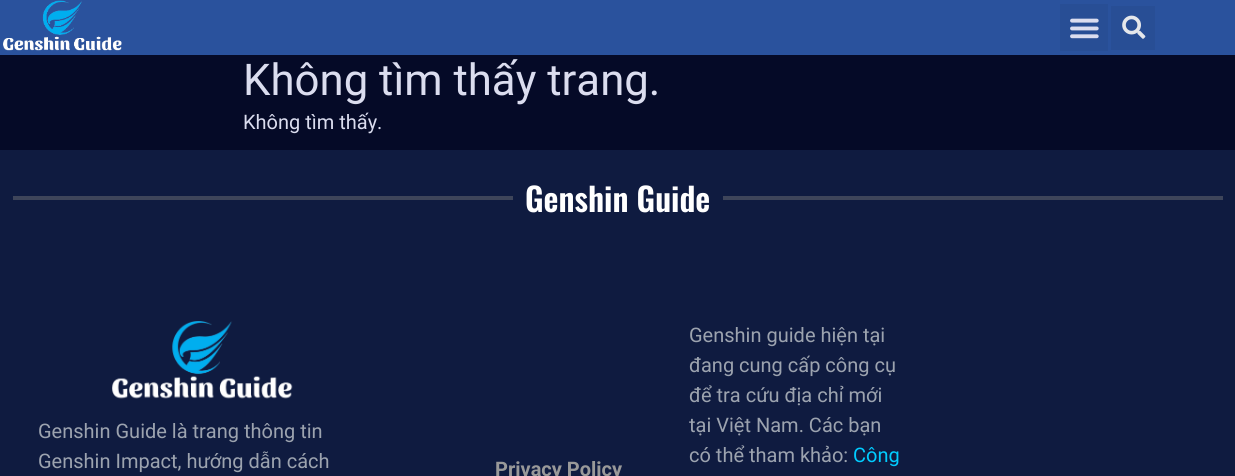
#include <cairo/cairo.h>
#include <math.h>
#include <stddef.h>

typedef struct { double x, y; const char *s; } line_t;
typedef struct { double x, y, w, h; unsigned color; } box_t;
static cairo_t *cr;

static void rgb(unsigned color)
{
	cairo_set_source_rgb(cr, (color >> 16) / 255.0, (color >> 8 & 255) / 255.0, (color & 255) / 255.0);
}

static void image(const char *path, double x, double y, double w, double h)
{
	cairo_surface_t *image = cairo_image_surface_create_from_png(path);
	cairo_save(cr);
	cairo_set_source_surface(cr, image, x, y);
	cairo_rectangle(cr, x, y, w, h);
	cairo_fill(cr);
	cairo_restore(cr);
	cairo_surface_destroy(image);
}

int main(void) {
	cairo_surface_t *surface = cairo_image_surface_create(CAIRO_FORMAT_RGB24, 1235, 476);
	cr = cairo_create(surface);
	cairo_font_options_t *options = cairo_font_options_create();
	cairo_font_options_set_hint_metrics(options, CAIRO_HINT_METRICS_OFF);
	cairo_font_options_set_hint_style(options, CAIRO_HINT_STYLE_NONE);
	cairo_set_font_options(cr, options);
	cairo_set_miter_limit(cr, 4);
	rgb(0x050a27);
	cairo_paint(cr);
	rgb(0x2a529d);
	cairo_rectangle(cr, 0, 0, 1235, 55);
	cairo_fill(cr);
	image("img/1.png", 3, 0, 119, 51);
	rgb(0x284e95);
	cairo_rectangle(cr, 1060, 4, 48, 47);
	cairo_fill(cr);
	image("img/2.png", 1070, 18, 29, 21);
	cairo_rectangle(cr, 1111, 6, 44, 44);
	cairo_fill(cr);
	image("img/3.png", 1122, 15, 24, 24);
	{
		static const box_t items[] = {
			{0, 150, 1235, 326, 0x0f1b40},
			{13, 196, 500, 4, 0x3e455a},
			{723, 196, 500, 4, 0x3e455a},
		};
		for (size_t i = 0; i < sizeof items / sizeof *items; i++) {
			rgb(items[i].color);
			cairo_rectangle(cr, items[i].x, items[i].y, items[i].w, items[i].h);
			cairo_fill(cr);
		}
	}
	image("img/4.png", 112, 321, 181, 78);
	cairo_select_font_face(cr, "Roboto", CAIRO_FONT_SLANT_NORMAL, CAIRO_FONT_WEIGHT_NORMAL);
	cairo_set_font_size(cr, 43.75);
	rgb(0xdbddef);
	cairo_move_to(cr, 243, 95);
	cairo_show_text(cr, "Không tìm thấy trang.");
	cairo_set_font_size(cr, 20);
	cairo_move_to(cr, 243, 129);
	cairo_show_text(cr, "Không tìm thấy.");
	cairo_select_font_face(cr, "Oswald SemiBold", CAIRO_FONT_SLANT_NORMAL, CAIRO_FONT_WEIGHT_NORMAL);
	cairo_set_font_size(cr, 32.5);
	rgb(0xffffff);
	cairo_move_to(cr, 525, 212);
	cairo_show_text(cr, "Genshin Guide");
	cairo_select_font_face(cr, "Roboto", CAIRO_FONT_SLANT_NORMAL, CAIRO_FONT_WEIGHT_NORMAL);
	cairo_set_font_size(cr, 20);
	rgb(0x9ca3af);
	cairo_move_to(cr, 38, 438);
	cairo_show_text(cr, "Genshin Guide là trang thông tin");
	cairo_move_to(cr, 38, 468);
	cairo_show_text(cr, "Genshin Impact, hướng dẫn cách");
	cairo_select_font_face(cr, "Roboto", CAIRO_FONT_SLANT_NORMAL, CAIRO_FONT_WEIGHT_BOLD);
	rgb(0x999999);
	cairo_move_to(cr, 495, 476);
	cairo_show_text(cr, "Privacy Policy");
	cairo_select_font_face(cr, "Roboto", CAIRO_FONT_SLANT_NORMAL, CAIRO_FONT_WEIGHT_NORMAL);
	rgb(0x9ca3af);
	{
		static const line_t items[] = {
			{689, 342, "Genshin guide hiện tại"},
			{689, 372, "đang cung cấp công cụ"},
			{689, 402, "để tra cứu địa chỉ mới"},
			{689, 432, "tại Việt Nam. Các bạn"},
			{689, 462, "có thể tham khảo:"},
		};
		for (size_t i = 0; i < sizeof items / sizeof *items; i++) {
			cairo_move_to(cr, items[i].x, items[i].y);
			cairo_show_text(cr, items[i].s);
		}
	}
	rgb(0x00ccff);
	cairo_move_to(cr, 853, 462);
	cairo_show_text(cr, "Công");
	cairo_surface_write_to_png(surface, "page.png");
	cairo_font_options_destroy(options);
	cairo_destroy(cr);
	cairo_surface_destroy(surface);
	return 0;
}
